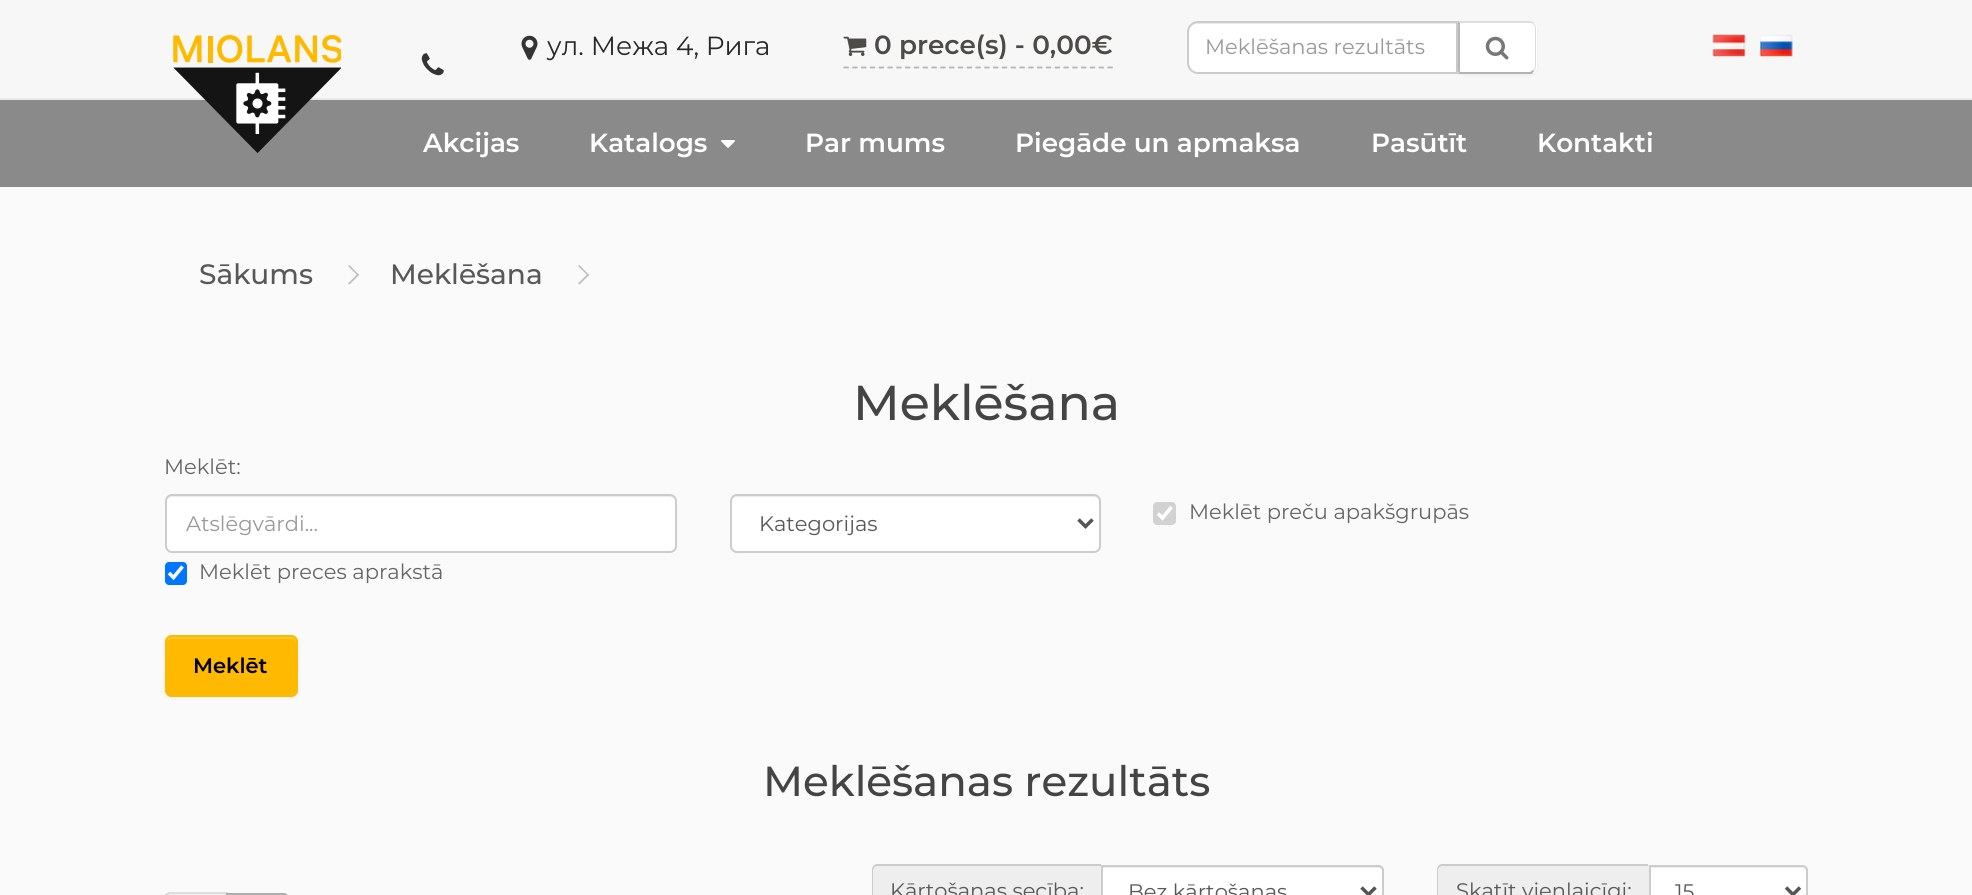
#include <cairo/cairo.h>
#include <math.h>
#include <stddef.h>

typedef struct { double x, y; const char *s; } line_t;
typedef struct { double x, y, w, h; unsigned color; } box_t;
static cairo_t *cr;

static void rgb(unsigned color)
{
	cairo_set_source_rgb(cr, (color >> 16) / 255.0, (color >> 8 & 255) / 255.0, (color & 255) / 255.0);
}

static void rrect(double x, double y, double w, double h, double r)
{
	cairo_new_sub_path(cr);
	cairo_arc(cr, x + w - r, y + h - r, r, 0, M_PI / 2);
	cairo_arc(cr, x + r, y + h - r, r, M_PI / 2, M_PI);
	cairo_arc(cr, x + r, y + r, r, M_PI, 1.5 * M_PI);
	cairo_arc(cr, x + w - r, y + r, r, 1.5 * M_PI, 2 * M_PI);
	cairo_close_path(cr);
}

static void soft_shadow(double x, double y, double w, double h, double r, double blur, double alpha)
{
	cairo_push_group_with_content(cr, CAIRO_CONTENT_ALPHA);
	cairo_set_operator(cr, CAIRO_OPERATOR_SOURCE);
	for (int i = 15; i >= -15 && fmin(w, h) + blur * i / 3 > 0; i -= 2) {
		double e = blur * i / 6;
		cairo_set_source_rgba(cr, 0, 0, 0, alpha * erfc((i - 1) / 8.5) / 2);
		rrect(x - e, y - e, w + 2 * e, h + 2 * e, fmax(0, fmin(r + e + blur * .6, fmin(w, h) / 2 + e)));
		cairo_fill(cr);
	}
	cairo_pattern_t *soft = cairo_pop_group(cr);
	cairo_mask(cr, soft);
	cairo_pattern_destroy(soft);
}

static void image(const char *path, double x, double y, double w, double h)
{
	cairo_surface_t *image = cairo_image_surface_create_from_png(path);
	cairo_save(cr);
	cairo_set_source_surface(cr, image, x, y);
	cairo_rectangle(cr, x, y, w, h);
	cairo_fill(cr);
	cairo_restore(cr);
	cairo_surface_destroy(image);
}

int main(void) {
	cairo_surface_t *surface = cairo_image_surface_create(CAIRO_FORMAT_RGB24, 1972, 895);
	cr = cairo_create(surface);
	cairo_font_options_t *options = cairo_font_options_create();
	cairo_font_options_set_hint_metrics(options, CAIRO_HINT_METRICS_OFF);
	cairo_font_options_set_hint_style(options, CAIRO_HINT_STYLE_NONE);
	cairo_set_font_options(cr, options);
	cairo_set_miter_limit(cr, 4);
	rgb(0xfafafa);
	cairo_paint(cr);
	{
		static const box_t items[] = {
			{0, 0, 1972, 98, 0xf7f7f7},
			{0, 98, 1972, 2, 0xe8e8e8},
			{0, 100, 1972, 87, 0x8a8a8a},
		};
		for (size_t i = 0; i < sizeof items / sizeof *items; i++) {
			rgb(items[i].color);
			cairo_rectangle(cr, items[i].x, items[i].y, items[i].w, items[i].h);
			cairo_fill(cr);
		}
	}
	image("img/1.png", 173, 35, 168, 118);
	image("img/2.png", 521, 35, 17, 25);
	cairo_new_path(cr);
	cairo_move_to(cr, 843.5, 67.5);
	cairo_line_to(cr, 1113, 67.5);
	rgb(0xb5b5b5);
	cairo_set_line_width(cr, 1.8);
	cairo_set_dash(cr, (double[]){5.25, 3.55}, 2, 0);
	cairo_stroke(cr);
	image("img/3.png", 843, 36, 24, 20);
	rgb(0xffffff);
	cairo_new_path(cr);
	cairo_move_to(cr, 1198, 21);
	cairo_line_to(cr, 1458, 21);
	cairo_line_to(cr, 1458, 74);
	cairo_line_to(cr, 1198, 74);
	cairo_curve_to(cr, 1192, 74, 1187, 69, 1187, 63);
	cairo_line_to(cr, 1187, 32);
	cairo_curve_to(cr, 1187, 26, 1192, 21, 1198, 21);
	cairo_close_path(cr);
	cairo_fill(cr);
	rgb(0xececec);
	cairo_new_path(cr);
	cairo_move_to(cr, 1197, 24);
	cairo_line_to(cr, 1456, 24);
	cairo_line_to(cr, 1456, 23);
	cairo_line_to(cr, 1197, 23);
	cairo_curve_to(cr, 1192, 23, 1188, 27, 1188, 32);
	cairo_line_to(cr, 1188, 33);
	cairo_curve_to(cr, 1188, 28, 1192, 24, 1197, 24);
	cairo_close_path(cr);
	cairo_fill(cr);
	cairo_new_path(cr);
	cairo_move_to(cr, 1198, 22);
	cairo_line_to(cr, 1457, 22);
	cairo_line_to(cr, 1457, 73);
	cairo_line_to(cr, 1198, 73);
	cairo_curve_to(cr, 1192.5, 73, 1188, 68.5, 1188, 63);
	cairo_line_to(cr, 1188, 32);
	cairo_curve_to(cr, 1188, 26.5, 1192.5, 22, 1198, 22);
	cairo_close_path(cr);
	rgb(0xcccccc);
	cairo_set_line_width(cr, 2);
	cairo_set_dash(cr, NULL, 0, 0);
	cairo_stroke(cr);
	rgb(0x000000);
	soft_shadow(1458, 23, 79, 52, 7, 2, 0.05);
	rgb(0xffffff);
	cairo_new_path(cr);
	cairo_move_to(cr, 1458, 21);
	cairo_line_to(cr, 1530, 21);
	cairo_curve_to(cr, 1534, 21, 1537, 24, 1537, 28);
	cairo_line_to(cr, 1537, 67);
	cairo_curve_to(cr, 1537, 71, 1534, 74, 1530, 74);
	cairo_line_to(cr, 1458, 74);
	cairo_close_path(cr);
	cairo_fill(cr);
	rgb(0xdddddd);
	cairo_new_path(cr);
	cairo_move_to(cr, 1458, 21);
	cairo_line_to(cr, 1460, 23);
	cairo_line_to(cr, 1530, 23);
	cairo_curve_to(cr, 1531, 23, 1532, 23, 1533, 24);
	cairo_line_to(cr, 1534, 23);
	cairo_curve_to(cr, 1533, 22, 1532, 21, 1530, 21);
	cairo_close_path(cr);
	cairo_fill(cr);
	cairo_new_path(cr);
	cairo_move_to(cr, 1534, 23);
	cairo_curve_to(cr, 1535, 24, 1536, 26, 1536, 28);
	cairo_line_to(cr, 1536, 66);
	cairo_curve_to(cr, 1536, 68, 1535, 70, 1534, 71);
	cairo_line_to(cr, 1533, 70);
	cairo_curve_to(cr, 1534, 69, 1535, 68, 1535, 66);
	cairo_line_to(cr, 1535, 28);
	cairo_curve_to(cr, 1535, 26, 1534, 25, 1533, 24);
	cairo_close_path(cr);
	cairo_fill(cr);
	rgb(0xb3b3b3);
	cairo_new_path(cr);
	cairo_move_to(cr, 1458, 74);
	cairo_line_to(cr, 1460, 71);
	cairo_line_to(cr, 1460, 72);
	cairo_line_to(cr, 1530, 72);
	cairo_line_to(cr, 1533, 70);
	cairo_line_to(cr, 1534, 71);
	cairo_line_to(cr, 1532, 74);
	cairo_close_path(cr);
	cairo_fill(cr);
	rgb(0xb7b7b7);
	cairo_new_path(cr);
	cairo_move_to(cr, 1458, 21);
	cairo_line_to(cr, 1458, 73);
	cairo_line_to(cr, 1460, 71);
	cairo_line_to(cr, 1460, 23);
	cairo_close_path(cr);
	cairo_fill(cr);
	image("img/4.png", 1485, 36, 24, 24);
	image("img/5.png", 421, 53, 23, 23);
	image("img/6.png", 1712, 34, 34, 23);
	image("img/7.png", 1760, 34, 33, 23);
	image("img/8.png", 721, 140, 14, 8);
	rgb(0xbdbdbd);
	cairo_new_path(cr);
	cairo_move_to(cr, 348, 266);
	cairo_line_to(cr, 349.5, 265);
	cairo_line_to(cr, 359, 275);
	cairo_line_to(cr, 358, 276);
	cairo_close_path(cr);
	cairo_fill(cr);
	cairo_new_path(cr);
	cairo_move_to(cr, 348, 283.5);
	cairo_line_to(cr, 358, 273.5);
	cairo_line_to(cr, 359, 275);
	cairo_line_to(cr, 349.5, 284.5);
	cairo_close_path(cr);
	cairo_fill(cr);
	cairo_new_path(cr);
	cairo_move_to(cr, 578, 266);
	cairo_line_to(cr, 579.5, 265);
	cairo_line_to(cr, 589, 275);
	cairo_line_to(cr, 588, 276);
	cairo_close_path(cr);
	cairo_fill(cr);
	cairo_new_path(cr);
	cairo_move_to(cr, 578, 283.5);
	cairo_line_to(cr, 588, 273.5);
	cairo_line_to(cr, 589, 275);
	cairo_line_to(cr, 579.5, 284.5);
	cairo_close_path(cr);
	cairo_fill(cr);
	rgb(0xffffff);
	rrect(165, 494, 512, 59, 7);
	cairo_fill(cr);
	rgb(0xececec);
	cairo_new_path(cr);
	cairo_move_to(cr, 172, 497);
	cairo_line_to(cr, 670, 497);
	cairo_curve_to(cr, 673, 497, 676, 499, 676, 502);
	cairo_line_to(cr, 676, 500);
	cairo_curve_to(cr, 676, 497, 674, 495, 671, 495);
	cairo_line_to(cr, 171, 495);
	cairo_curve_to(cr, 168, 495, 166, 497, 166, 500);
	cairo_line_to(cr, 166, 502);
	cairo_curve_to(cr, 166, 499, 169, 497, 172, 497);
	cairo_close_path(cr);
	cairo_fill(cr);
	rrect(166, 495, 510, 57, 6);
	rgb(0xcccccc);
	cairo_stroke(cr);
	rgb(0xffffff);
	rrect(730, 494, 371, 59, 7);
	cairo_fill(cr);
	rgb(0xececec);
	cairo_new_path(cr);
	cairo_move_to(cr, 737, 497);
	cairo_line_to(cr, 1094, 497);
	cairo_curve_to(cr, 1097, 497, 1099, 499, 1099, 502);
	cairo_curve_to(cr, 1099, 499, 1098, 495, 1094, 495);
	cairo_line_to(cr, 737, 495);
	cairo_curve_to(cr, 733, 495, 732, 499, 732, 502);
	cairo_curve_to(cr, 732, 499, 734, 497, 737, 497);
	cairo_close_path(cr);
	cairo_fill(cr);
	rrect(731, 495, 369, 57, 6);
	rgb(0xcccccc);
	cairo_stroke(cr);
	cairo_new_path(cr);
	cairo_move_to(cr, 1078.5, 519.5);
	cairo_line_to(cr, 1085.5, 526.5);
	cairo_line_to(cr, 1092.5, 519.5);
	rgb(0x555555);
	cairo_set_line_width(cr, 3.5);
	cairo_stroke(cr);
	rgb(0xd2d2d2);
	rrect(1153, 502, 23, 23, 4);
	cairo_fill(cr);
	cairo_new_path(cr);
	cairo_move_to(cr, 1158, 513.5);
	cairo_line_to(cr, 1162.5, 518);
	cairo_line_to(cr, 1171.5, 507);
	rgb(0xffffff);
	cairo_set_line_width(cr, 3.6);
	cairo_stroke(cr);
	rgb(0x0075ff);
	rrect(165, 562, 22, 23, 4);
	cairo_fill(cr);
	cairo_new_path(cr);
	cairo_move_to(cr, 169, 573);
	cairo_line_to(cr, 173.5, 577.5);
	cairo_line_to(cr, 182.5, 566.5);
	rgb(0xffffff);
	cairo_stroke(cr);
	rgb(0x000000);
	soft_shadow(165, 637, 133, 61, 7, 2, 0.05);
	rgb(0xffba00);
	rrect(165, 635, 133, 62, 7);
	cairo_fill(cr);
	rgb(0xffc833);
	cairo_new_path(cr);
	cairo_move_to(cr, 172, 639);
	cairo_line_to(cr, 290, 639);
	cairo_curve_to(cr, 293, 639, 296, 641, 296, 644);
	cairo_line_to(cr, 296, 642);
	cairo_curve_to(cr, 296, 639, 294, 637, 291, 637);
	cairo_line_to(cr, 171, 637);
	cairo_curve_to(cr, 168, 637, 166, 639, 166, 642);
	cairo_line_to(cr, 166, 644);
	cairo_curve_to(cr, 166, 641, 169, 639, 172, 639);
	cairo_close_path(cr);
	cairo_fill(cr);
	rrect(166, 636, 131, 60, 6);
	rgb(0xffba00);
	cairo_set_line_width(cr, 2);
	cairo_stroke(cr);
	rgb(0xeeeeee);
	cairo_new_path(cr);
	cairo_move_to(cr, 877, 865);
	cairo_line_to(cr, 1101, 865);
	cairo_line_to(cr, 1101, 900);
	cairo_line_to(cr, 877, 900);
	cairo_curve_to(cr, 874, 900, 872, 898, 872, 895);
	cairo_line_to(cr, 872, 870);
	cairo_curve_to(cr, 872, 867, 874, 865, 877, 865);
	cairo_close_path(cr);
	cairo_fill(cr);
	rgb(0xcccccc);
	cairo_set_fill_rule(cr, CAIRO_FILL_RULE_EVEN_ODD);
	cairo_new_path(cr);
	cairo_move_to(cr, 877, 864);
	cairo_line_to(cr, 1101, 864);
	cairo_line_to(cr, 1101, 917);
	cairo_line_to(cr, 877, 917);
	cairo_curve_to(cr, 874, 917, 872, 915, 872, 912);
	cairo_line_to(cr, 872, 870);
	cairo_curve_to(cr, 872, 867, 874, 864, 877, 864);
	cairo_close_path(cr);
	cairo_move_to(cr, 877, 866);
	cairo_line_to(cr, 1101, 866);
	cairo_line_to(cr, 1101, 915);
	cairo_line_to(cr, 877, 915);
	cairo_curve_to(cr, 875, 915, 873, 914, 873, 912);
	cairo_line_to(cr, 873, 870);
	cairo_curve_to(cr, 873, 868, 875, 866, 877, 866);
	cairo_close_path(cr);
	cairo_fill(cr);
	rgb(0xffffff);
	cairo_new_path(cr);
	cairo_move_to(cr, 1101, 865);
	cairo_line_to(cr, 1379, 865);
	cairo_curve_to(cr, 1382, 865, 1384, 867, 1384, 870);
	cairo_line_to(cr, 1384, 895);
	cairo_curve_to(cr, 1384, 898, 1382, 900, 1379, 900);
	cairo_line_to(cr, 1101, 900);
	cairo_close_path(cr);
	cairo_fill(cr);
	rgb(0xececec);
	cairo_set_fill_rule(cr, CAIRO_FILL_RULE_WINDING);
	cairo_new_path(cr);
	cairo_move_to(cr, 1103, 866);
	cairo_line_to(cr, 1103, 868);
	cairo_line_to(cr, 1379, 868);
	cairo_curve_to(cr, 1381, 868, 1382, 870, 1382, 872);
	cairo_line_to(cr, 1382, 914);
	cairo_curve_to(cr, 1383, 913, 1383, 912, 1383, 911);
	cairo_line_to(cr, 1383, 870);
	cairo_curve_to(cr, 1383, 868, 1381, 866, 1379, 866);
	cairo_close_path(cr);
	cairo_fill(cr);
	cairo_new_path(cr);
	cairo_move_to(cr, 1102, 866);
	cairo_line_to(cr, 1379, 866);
	cairo_curve_to(cr, 1381, 866, 1383, 868, 1383, 870);
	cairo_line_to(cr, 1383, 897);
	cairo_curve_to(cr, 1383, 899, 1381, 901, 1379, 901);
	cairo_line_to(cr, 1102, 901);
	cairo_close_path(cr);
	rgb(0xcccccc);
	cairo_stroke(cr);
	cairo_new_path(cr);
	cairo_move_to(cr, 1361.5, 887.5);
	cairo_line_to(cr, 1368.5, 894.5);
	cairo_line_to(cr, 1375.5, 887.5);
	rgb(0x555555);
	cairo_set_line_width(cr, 3.5);
	cairo_stroke(cr);
	rgb(0xeeeeee);
	cairo_new_path(cr);
	cairo_move_to(cr, 1442, 865);
	cairo_line_to(cr, 1649, 865);
	cairo_line_to(cr, 1649, 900);
	cairo_line_to(cr, 1442, 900);
	cairo_curve_to(cr, 1439, 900, 1437, 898, 1437, 895);
	cairo_line_to(cr, 1437, 870);
	cairo_curve_to(cr, 1437, 867, 1439, 865, 1442, 865);
	cairo_close_path(cr);
	cairo_fill(cr);
	rgb(0xcccccc);
	cairo_set_fill_rule(cr, CAIRO_FILL_RULE_EVEN_ODD);
	cairo_new_path(cr);
	cairo_move_to(cr, 1442, 864);
	cairo_line_to(cr, 1648, 864);
	cairo_line_to(cr, 1648, 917);
	cairo_line_to(cr, 1442, 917);
	cairo_curve_to(cr, 1439, 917, 1437, 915, 1437, 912);
	cairo_line_to(cr, 1437, 870);
	cairo_curve_to(cr, 1437, 867, 1439, 864, 1442, 864);
	cairo_close_path(cr);
	cairo_move_to(cr, 1442, 866);
	cairo_line_to(cr, 1648, 866);
	cairo_line_to(cr, 1648, 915);
	cairo_line_to(cr, 1442, 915);
	cairo_curve_to(cr, 1440, 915, 1438, 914, 1438, 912);
	cairo_line_to(cr, 1438, 870);
	cairo_curve_to(cr, 1438, 868, 1440, 866, 1442, 866);
	cairo_close_path(cr);
	cairo_fill(cr);
	rgb(0xffffff);
	cairo_new_path(cr);
	cairo_move_to(cr, 1649, 865);
	cairo_line_to(cr, 1803, 865);
	cairo_curve_to(cr, 1806, 865, 1808, 867, 1808, 870);
	cairo_line_to(cr, 1808, 895);
	cairo_curve_to(cr, 1808, 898, 1806, 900, 1803, 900);
	cairo_line_to(cr, 1649, 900);
	cairo_close_path(cr);
	cairo_fill(cr);
	rgb(0xececec);
	cairo_set_fill_rule(cr, CAIRO_FILL_RULE_WINDING);
	cairo_new_path(cr);
	cairo_move_to(cr, 1650, 868);
	cairo_line_to(cr, 1802, 868);
	cairo_curve_to(cr, 1804, 868, 1806, 870, 1806, 872);
	cairo_line_to(cr, 1806, 870);
	cairo_curve_to(cr, 1806, 868, 1804, 866, 1802, 866);
	cairo_line_to(cr, 1650, 866);
	cairo_close_path(cr);
	cairo_fill(cr);
	cairo_new_path(cr);
	cairo_move_to(cr, 1650, 866);
	cairo_line_to(cr, 1803, 866);
	cairo_curve_to(cr, 1805, 866, 1807, 868, 1807, 870);
	cairo_line_to(cr, 1807, 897);
	cairo_curve_to(cr, 1807, 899, 1805, 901, 1803, 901);
	cairo_line_to(cr, 1650, 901);
	cairo_close_path(cr);
	rgb(0xcccccc);
	cairo_set_line_width(cr, 2);
	cairo_stroke(cr);
	cairo_new_path(cr);
	cairo_move_to(cr, 1786, 887.5);
	cairo_line_to(cr, 1793, 894.5);
	cairo_line_to(cr, 1800, 887.5);
	rgb(0x555555);
	cairo_set_line_width(cr, 3.5);
	cairo_stroke(cr);
	rgb(0xf1f1f1);
	cairo_new_path(cr);
	cairo_move_to(cr, 170, 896);
	cairo_line_to(cr, 226, 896);
	cairo_line_to(cr, 226, 894);
	cairo_line_to(cr, 170, 894);
	cairo_curve_to(cr, 168, 894, 166, 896, 166, 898);
	cairo_line_to(cr, 166, 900);
	cairo_curve_to(cr, 166, 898, 168, 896, 170, 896);
	cairo_close_path(cr);
	cairo_fill(cr);
	rgb(0xdddddd);
	cairo_new_path(cr);
	cairo_move_to(cr, 170, 894);
	cairo_line_to(cr, 167, 895);
	cairo_line_to(cr, 166, 894);
	cairo_line_to(cr, 168, 892);
	cairo_line_to(cr, 228, 892);
	cairo_line_to(cr, 226, 894);
	cairo_close_path(cr);
	cairo_fill(cr);
	cairo_new_path(cr);
	cairo_move_to(cr, 228, 892);
	cairo_line_to(cr, 226, 894);
	cairo_line_to(cr, 226, 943);
	cairo_line_to(cr, 228, 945);
	cairo_close_path(cr);
	cairo_fill(cr);
	rgb(0xb7b7b7);
	cairo_new_path(cr);
	cairo_move_to(cr, 164, 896);
	cairo_line_to(cr, 166, 894);
	cairo_line_to(cr, 167, 895);
	cairo_line_to(cr, 166, 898);
	cairo_line_to(cr, 166, 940);
	cairo_line_to(cr, 167, 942);
	cairo_line_to(cr, 166, 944);
	cairo_line_to(cr, 164, 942);
	cairo_close_path(cr);
	cairo_fill(cr);
	cairo_new_path(cr);
	cairo_move_to(cr, 227, 894);
	cairo_line_to(cr, 284, 894);
	cairo_curve_to(cr, 286, 894, 288, 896, 288, 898);
	cairo_line_to(cr, 288, 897);
	cairo_curve_to(cr, 288, 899, 286, 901, 284, 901);
	cairo_line_to(cr, 227, 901);
	cairo_close_path(cr);
	rgb(0xadadad);
	cairo_set_line_width(cr, 2);
	cairo_stroke(cr);
	cairo_select_font_face(cr, "Montserrat", CAIRO_FONT_SLANT_NORMAL, CAIRO_FONT_WEIGHT_NORMAL);
	cairo_set_font_size(cr, 26.25);
	rgb(0x282828);
	cairo_move_to(cr, 547, 55);
	cairo_show_text(cr, "ул. Межа 4, Рига");
	cairo_select_font_face(cr, "Montserrat SemiBold", CAIRO_FONT_SLANT_NORMAL, CAIRO_FONT_WEIGHT_NORMAL);
	rgb(0x4c4b47);
	cairo_move_to(cr, 874, 54);
	cairo_show_text(cr, "0 prece(s) - 0,00€");
	cairo_select_font_face(cr, "Montserrat", CAIRO_FONT_SLANT_NORMAL, CAIRO_FONT_WEIGHT_NORMAL);
	cairo_set_font_size(cr, 21);
	rgb(0x999999);
	cairo_move_to(cr, 1205, 54);
	cairo_show_text(cr, "Meklēšanas rezultāts");
	cairo_select_font_face(cr, "Montserrat SemiBold", CAIRO_FONT_SLANT_NORMAL, CAIRO_FONT_WEIGHT_NORMAL);
	cairo_set_font_size(cr, 26.25);
	rgb(0xffffff);
	{
		static const line_t items[] = {
			{423, 152, "Akcijas"},
			{589, 152, "Katalogs"},
			{805, 152, "Par mums"},
			{1015, 152, "Piegāde un apmaksa"},
			{1371, 152, "Pasūtīt"},
			{1537, 152, "Kontakti"},
		};
		for (size_t i = 0; i < sizeof items / sizeof *items; i++) {
			cairo_move_to(cr, items[i].x, items[i].y);
			cairo_show_text(cr, items[i].s);
		}
	}
	cairo_select_font_face(cr, "Montserrat Medium", CAIRO_FONT_SLANT_NORMAL, CAIRO_FONT_WEIGHT_NORMAL);
	cairo_set_font_size(cr, 28);
	rgb(0x585858);
	cairo_move_to(cr, 199, 284);
	cairo_show_text(cr, "Sākums");
	cairo_move_to(cr, 390, 284);
	cairo_show_text(cr, "Meklēšana");
	cairo_set_font_size(cr, 49);
	rgb(0x444444);
	cairo_move_to(cr, 853, 420);
	cairo_show_text(cr, "Meklēšana");
	cairo_select_font_face(cr, "Montserrat", CAIRO_FONT_SLANT_NORMAL, CAIRO_FONT_WEIGHT_NORMAL);
	cairo_set_font_size(cr, 21);
	rgb(0x666666);
	cairo_move_to(cr, 164, 474);
	cairo_show_text(cr, "Meklēt:");
	rgb(0x999999);
	cairo_move_to(cr, 186, 531);
	cairo_show_text(cr, "Atslēgvārdi...");
	rgb(0x585858);
	cairo_move_to(cr, 759, 531);
	cairo_show_text(cr, "Kategorijas");
	rgb(0x666666);
	cairo_move_to(cr, 1189, 519);
	cairo_show_text(cr, "Meklēt preču apakšgrupās");
	cairo_move_to(cr, 199, 579);
	cairo_show_text(cr, "Meklēt preces aprakstā");
	cairo_select_font_face(cr, "Montserrat SemiBold", CAIRO_FONT_SLANT_NORMAL, CAIRO_FONT_WEIGHT_NORMAL);
	rgb(0x000000);
	cairo_move_to(cr, 193, 673);
	cairo_show_text(cr, "Meklēt");
	cairo_select_font_face(cr, "Montserrat Medium", CAIRO_FONT_SLANT_NORMAL, CAIRO_FONT_WEIGHT_NORMAL);
	cairo_set_font_size(cr, 42);
	rgb(0x444444);
	cairo_move_to(cr, 763, 796);
	cairo_show_text(cr, "Meklēšanas rezultāts");
	cairo_select_font_face(cr, "Montserrat", CAIRO_FONT_SLANT_NORMAL, CAIRO_FONT_WEIGHT_NORMAL);
	cairo_set_font_size(cr, 21);
	rgb(0x585858);
	{
		static const line_t items[] = {
			{890, 898, "Kārtošanas secība:"},
			{1128, 899, "Bez kārtošanas"},
			{1456, 898, "Skatīt vienlaicīgi:"},
			{1675, 899, "15"},
		};
		for (size_t i = 0; i < sizeof items / sizeof *items; i++) {
			cairo_move_to(cr, items[i].x, items[i].y);
			cairo_show_text(cr, items[i].s);
		}
	}
	cairo_surface_write_to_png(surface, "page.png");
	cairo_font_options_destroy(options);
	cairo_destroy(cr);
	cairo_surface_destroy(surface);
	return 0;
}
